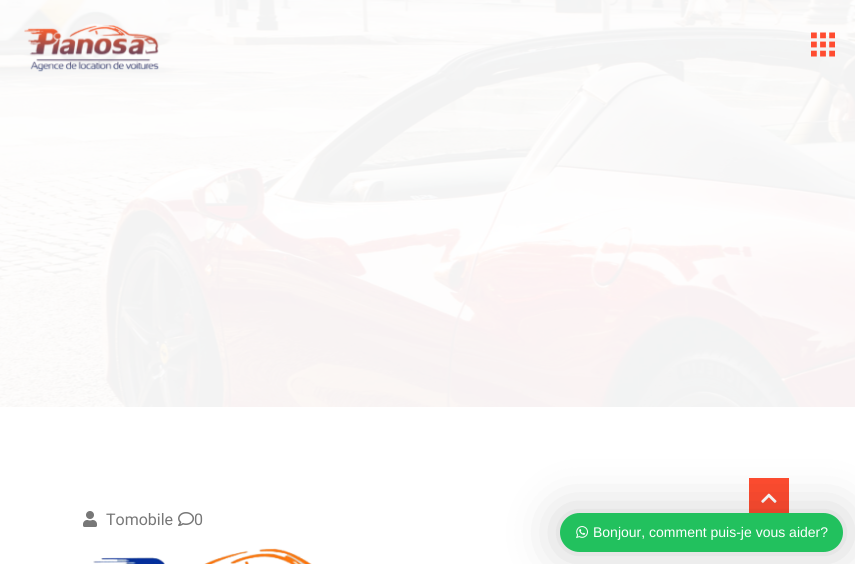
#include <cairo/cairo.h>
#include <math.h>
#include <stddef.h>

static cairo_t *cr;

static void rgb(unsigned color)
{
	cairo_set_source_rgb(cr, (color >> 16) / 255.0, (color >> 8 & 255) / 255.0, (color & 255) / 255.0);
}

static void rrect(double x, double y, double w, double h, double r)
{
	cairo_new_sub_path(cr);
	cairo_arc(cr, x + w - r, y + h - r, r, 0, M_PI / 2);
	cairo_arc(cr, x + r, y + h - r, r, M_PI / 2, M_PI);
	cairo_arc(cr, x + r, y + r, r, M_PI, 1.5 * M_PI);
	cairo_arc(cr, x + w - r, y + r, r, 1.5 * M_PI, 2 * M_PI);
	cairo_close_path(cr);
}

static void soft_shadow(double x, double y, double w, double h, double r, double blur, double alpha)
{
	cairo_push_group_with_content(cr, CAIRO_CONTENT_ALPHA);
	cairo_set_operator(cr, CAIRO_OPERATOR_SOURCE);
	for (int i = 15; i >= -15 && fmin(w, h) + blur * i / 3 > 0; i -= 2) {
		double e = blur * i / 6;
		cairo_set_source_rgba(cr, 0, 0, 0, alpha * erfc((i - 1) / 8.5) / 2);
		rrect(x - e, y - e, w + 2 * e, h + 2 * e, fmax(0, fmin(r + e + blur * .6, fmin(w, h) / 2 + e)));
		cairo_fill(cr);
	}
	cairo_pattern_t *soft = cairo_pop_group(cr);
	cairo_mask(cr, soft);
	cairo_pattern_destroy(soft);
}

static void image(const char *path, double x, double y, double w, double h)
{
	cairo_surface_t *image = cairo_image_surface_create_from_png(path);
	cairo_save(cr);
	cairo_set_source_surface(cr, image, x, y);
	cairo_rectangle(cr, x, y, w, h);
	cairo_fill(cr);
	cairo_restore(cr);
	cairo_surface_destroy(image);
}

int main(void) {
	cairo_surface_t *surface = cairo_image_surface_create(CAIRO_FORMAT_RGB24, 855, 564);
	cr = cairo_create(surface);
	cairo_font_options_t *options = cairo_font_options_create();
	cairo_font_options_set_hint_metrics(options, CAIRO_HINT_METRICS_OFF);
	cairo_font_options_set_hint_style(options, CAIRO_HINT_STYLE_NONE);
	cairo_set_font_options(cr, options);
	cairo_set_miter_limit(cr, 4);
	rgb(0xffffff);
	cairo_paint(cr);
	image("img/1.png", 0, 0, 855, 407);
	image("img/2.png", 24, 25, 135, 47);
	image("img/3.png", 811, 32, 24, 25);
	rgb(0xff4c30);
	cairo_rectangle(cr, 749, 478, 40, 35);
	cairo_fill(cr);
	image("img/4.png", 761, 493, 16, 10);
	image("img/5.png", 83, 511, 14, 16);
	image("img/6.png", 178, 512, 16, 14);
	image("img/7.png", 93, 548, 219, 16);
	rgb(0x000000);
	soft_shadow(560, 513, 283, 39, 19.5, 25, 0.2);
	rgb(0x22c15e);
	rrect(560, 513, 283, 39, 19.5);
	cairo_fill(cr);
	image("img/8.png", 576, 526, 12, 13);
	cairo_select_font_face(cr, "Roboto", CAIRO_FONT_SLANT_NORMAL, CAIRO_FONT_WEIGHT_NORMAL);
	cairo_set_font_size(cr, 16);
	rgb(0x777777);
	cairo_move_to(cr, 106, 525);
	cairo_show_text(cr, "Tomobile");
	cairo_move_to(cr, 194, 525);
	cairo_show_text(cr, "0");
	cairo_select_font_face(cr, "Liberation Sans", CAIRO_FONT_SLANT_NORMAL, CAIRO_FONT_WEIGHT_NORMAL);
	cairo_set_font_size(cr, 14);
	rgb(0xffffff);
	cairo_move_to(cr, 593, 537);
	cairo_show_text(cr, "Bonjour, comment puis-je vous aider?");
	cairo_surface_write_to_png(surface, "page.png");
	cairo_font_options_destroy(options);
	cairo_destroy(cr);
	cairo_surface_destroy(surface);
	return 0;
}
